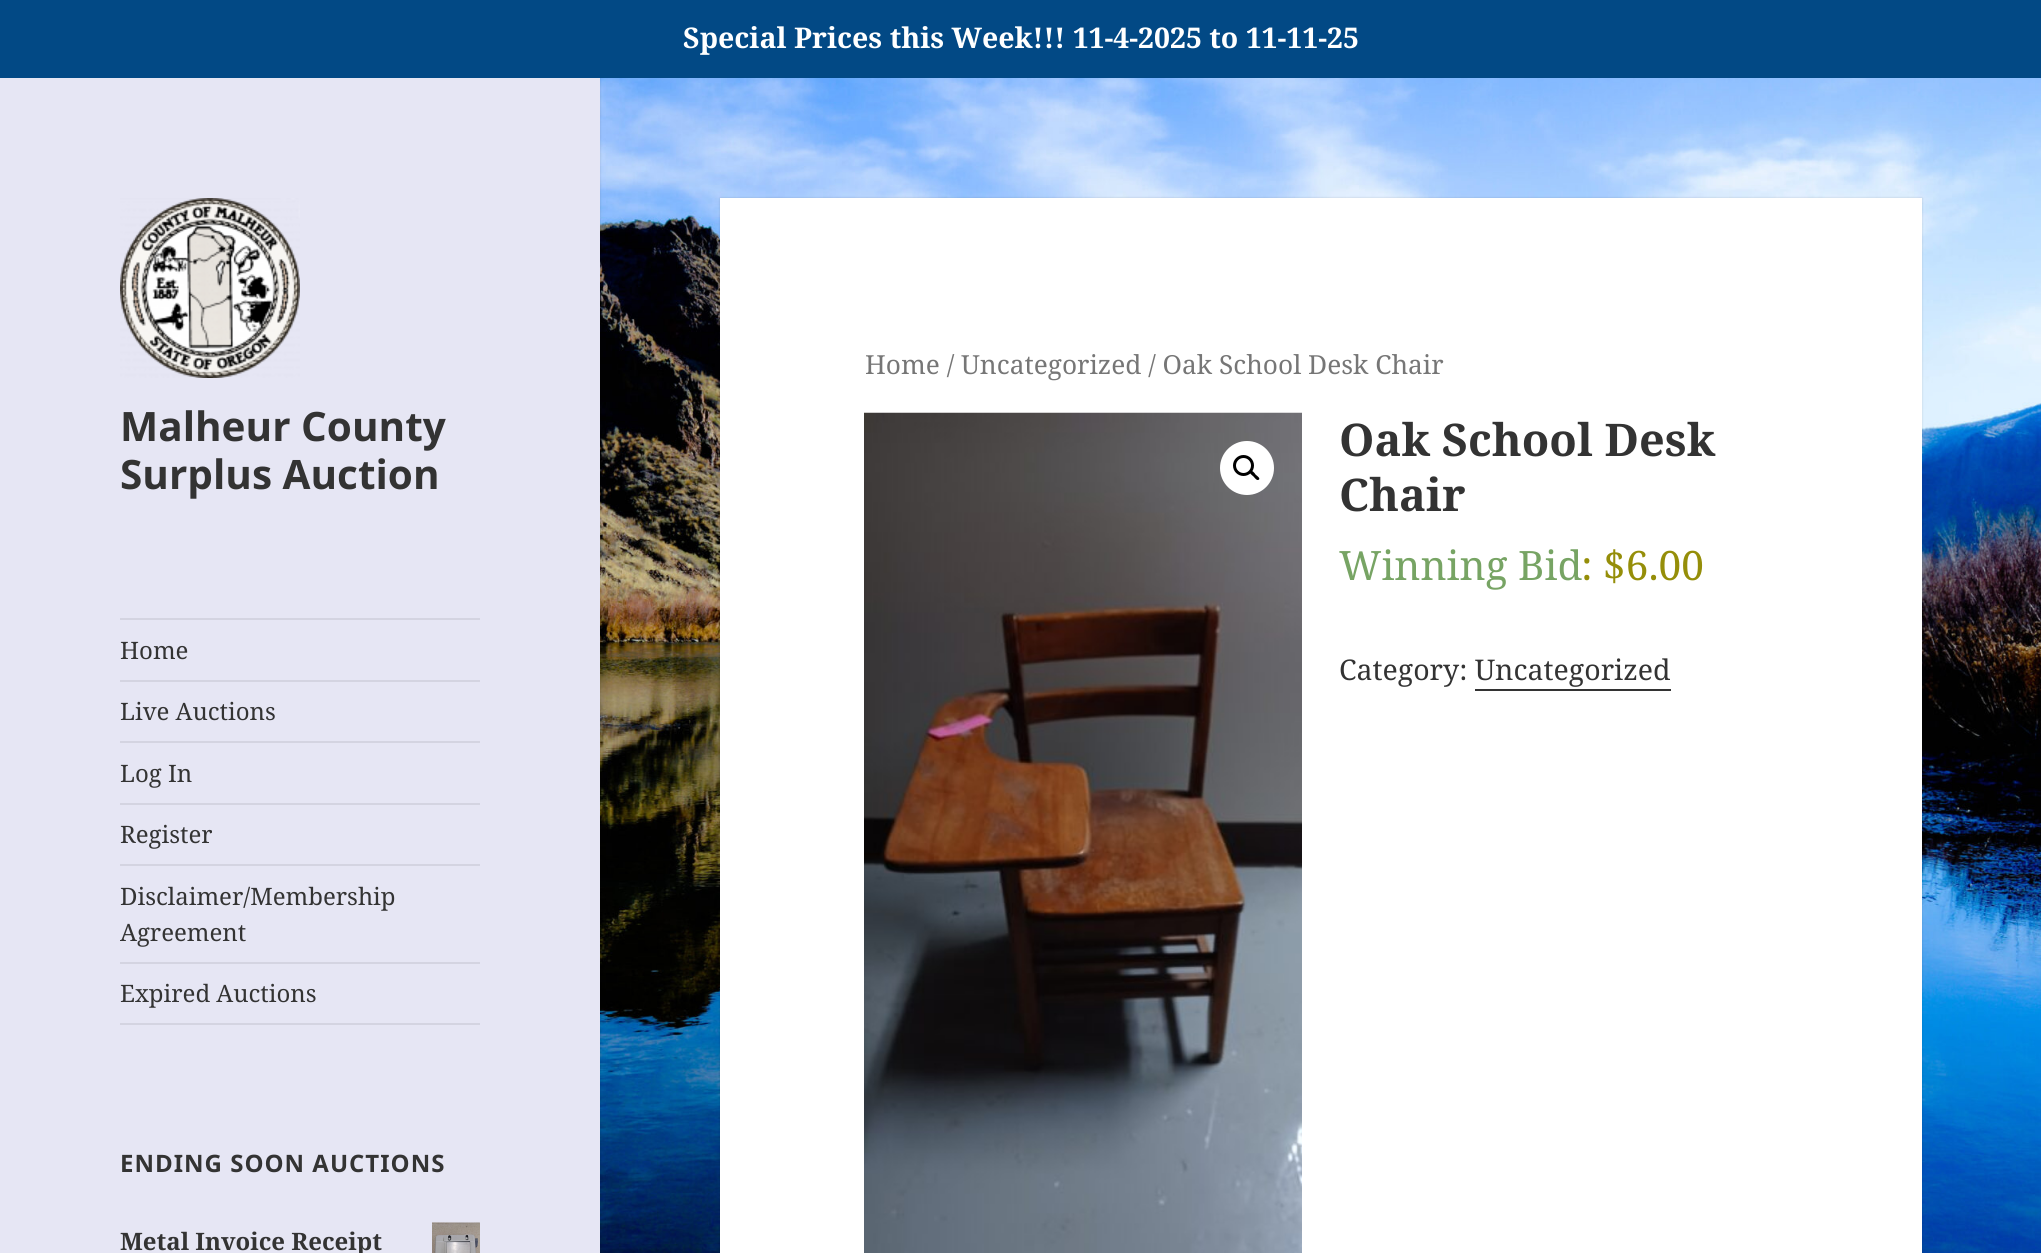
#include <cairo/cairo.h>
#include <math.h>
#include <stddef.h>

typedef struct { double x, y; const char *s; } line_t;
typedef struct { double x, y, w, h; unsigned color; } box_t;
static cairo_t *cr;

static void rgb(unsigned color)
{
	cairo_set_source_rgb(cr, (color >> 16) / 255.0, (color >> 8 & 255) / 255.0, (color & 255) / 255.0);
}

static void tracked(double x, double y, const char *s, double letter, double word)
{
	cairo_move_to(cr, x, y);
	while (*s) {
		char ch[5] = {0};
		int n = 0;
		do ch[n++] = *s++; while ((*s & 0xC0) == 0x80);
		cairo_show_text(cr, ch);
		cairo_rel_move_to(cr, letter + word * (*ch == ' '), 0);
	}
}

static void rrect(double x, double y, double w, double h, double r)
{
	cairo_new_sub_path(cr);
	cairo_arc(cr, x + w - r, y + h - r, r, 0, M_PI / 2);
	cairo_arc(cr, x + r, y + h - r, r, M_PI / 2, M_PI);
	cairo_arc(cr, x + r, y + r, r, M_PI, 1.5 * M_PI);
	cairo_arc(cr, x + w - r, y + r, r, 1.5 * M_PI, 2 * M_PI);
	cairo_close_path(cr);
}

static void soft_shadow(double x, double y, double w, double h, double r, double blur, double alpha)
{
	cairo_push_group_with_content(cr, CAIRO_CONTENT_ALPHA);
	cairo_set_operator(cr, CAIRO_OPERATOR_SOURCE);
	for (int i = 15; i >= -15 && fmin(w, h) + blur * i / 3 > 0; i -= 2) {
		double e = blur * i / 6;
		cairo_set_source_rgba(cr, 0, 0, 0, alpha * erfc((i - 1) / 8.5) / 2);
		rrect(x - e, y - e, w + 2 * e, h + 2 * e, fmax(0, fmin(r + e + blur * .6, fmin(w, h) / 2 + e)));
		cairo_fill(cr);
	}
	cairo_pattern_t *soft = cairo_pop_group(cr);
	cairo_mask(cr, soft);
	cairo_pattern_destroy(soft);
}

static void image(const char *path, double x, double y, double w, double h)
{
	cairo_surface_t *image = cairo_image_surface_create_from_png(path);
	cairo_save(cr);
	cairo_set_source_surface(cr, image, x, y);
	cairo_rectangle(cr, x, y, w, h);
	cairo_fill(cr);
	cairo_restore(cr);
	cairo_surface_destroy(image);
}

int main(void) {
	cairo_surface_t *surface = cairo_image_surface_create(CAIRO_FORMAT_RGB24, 2041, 1253);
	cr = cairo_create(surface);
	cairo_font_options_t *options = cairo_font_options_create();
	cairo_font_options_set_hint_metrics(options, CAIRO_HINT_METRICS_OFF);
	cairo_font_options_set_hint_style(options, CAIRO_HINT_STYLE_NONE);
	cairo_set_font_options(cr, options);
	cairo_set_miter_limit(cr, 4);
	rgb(0xffffff);
	cairo_paint(cr);
	image("img/1.png", 600, 78, 1441, 1175);
	rgb(0x000000);
	soft_shadow(0, 0, 600, 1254, 0, 1, 0.15);
	rgb(0xe6e6f4);
	cairo_rectangle(cr, 0, 78, 600, 1175);
	cairo_fill(cr);
	rgb(0x024985);
	cairo_rectangle(cr, 0, 0, 2041, 78);
	cairo_fill(cr);
	image("img/2.png", 120, 198, 180, 180);
	{
		static const box_t items[] = {
			{120, 618, 360, 2, 0xd4d4e1},
			{120, 1023, 360, 2, 0xd4d4e1},
			{120, 680, 360, 2, 0xd4d4e1},
			{120, 741, 360, 2, 0xd4d4e1},
			{120, 803, 360, 2, 0xd4d4e1},
			{120, 864, 360, 2, 0xd4d4e1},
			{120, 962, 360, 2, 0xd4d4e1},
		};
		for (size_t i = 0; i < sizeof items / sizeof *items; i++) {
			rgb(items[i].color);
			cairo_rectangle(cr, items[i].x, items[i].y, items[i].w, items[i].h);
			cairo_fill(cr);
		}
	}
	image("img/3.png", 432, 1222, 48, 31);
	rgb(0x000000);
	soft_shadow(720, 198, 1202, 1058, 0, 1, 0.15);
	rgb(0xffffff);
	cairo_rectangle(cr, 720, 198, 1202, 1055);
	cairo_fill(cr);
	image("img/4.png", 864, 412, 438, 841);
	cairo_arc(cr, 1247, 468, 27, 0, 2 * M_PI);
	cairo_fill(cr);
	cairo_arc(cr, 1243.5, 465.5, 9, 0, 2 * M_PI);
	rgb(0x000000);
	cairo_set_line_width(cr, 3);
	cairo_stroke(cr);
	cairo_new_path(cr);
	cairo_move_to(cr, 1250.5, 471.5);
	cairo_curve_to(cr, 1252, 469.5, 1255, 473.5, 1255.5, 474.5);
	cairo_curve_to(cr, 1256.5, 475.5, 1260.5, 478, 1259, 479.5);
	cairo_curve_to(cr, 1257, 481.5, 1254.5, 477.5, 1253.5, 476.5);
	cairo_curve_to(cr, 1252.5, 475.5, 1248.5, 473, 1250.5, 471.5);
	cairo_close_path(cr);
	cairo_fill(cr);
	rgb(0x333333);
	cairo_rectangle(cr, 1475, 689, 196, 2);
	cairo_fill(cr);
	cairo_select_font_face(cr, "Noto Serif", CAIRO_FONT_SLANT_NORMAL, CAIRO_FONT_WEIGHT_BOLD);
	cairo_set_font_size(cr, 28.5);
	rgb(0xffffff);
	cairo_move_to(cr, 683, 48);
	cairo_show_text(cr, "Special Prices this Week!!! 11-4-2025 to 11-11-25");
	cairo_select_font_face(cr, "Noto Sans", CAIRO_FONT_SLANT_NORMAL, CAIRO_FONT_WEIGHT_BOLD);
	cairo_set_font_size(cr, 40.5);
	rgb(0x333333);
	cairo_move_to(cr, 120, 441);
	cairo_show_text(cr, "Malheur County");
	cairo_move_to(cr, 120, 489);
	cairo_show_text(cr, "Surplus Auction");
	cairo_select_font_face(cr, "Noto Serif", CAIRO_FONT_SLANT_NORMAL, CAIRO_FONT_WEIGHT_NORMAL);
	cairo_set_font_size(cr, 24);
	{
		static const line_t items[] = {
			{120, 659, "Home"},
			{120, 720, "Live Auctions"},
			{120, 782, "Log In"},
			{120, 843, "Register"},
			{120, 905, "Disclaimer/Membership"},
			{120, 941, "Agreement"},
			{120, 1002, "Expired Auctions"},
		};
		for (size_t i = 0; i < sizeof items / sizeof *items; i++) {
			cairo_move_to(cr, items[i].x, items[i].y);
			cairo_show_text(cr, items[i].s);
		}
	}
	cairo_select_font_face(cr, "Noto Sans", CAIRO_FONT_SLANT_NORMAL, CAIRO_FONT_WEIGHT_BOLD);
	tracked(120, 1172, "ENDING SOON AUCTIONS", 1, 0);
	cairo_select_font_face(cr, "Noto Serif", CAIRO_FONT_SLANT_NORMAL, CAIRO_FONT_WEIGHT_BOLD);
	cairo_move_to(cr, 120, 1250);
	cairo_show_text(cr, "Metal Invoice Receipt");
	cairo_select_font_face(cr, "Noto Serif", CAIRO_FONT_SLANT_NORMAL, CAIRO_FONT_WEIGHT_NORMAL);
	cairo_set_font_size(cr, 26.25);
	rgb(0x767676);
	cairo_move_to(cr, 865, 374);
	cairo_show_text(cr, "Home / Uncategorized / Oak School Desk Chair");
	cairo_select_font_face(cr, "Noto Serif", CAIRO_FONT_SLANT_NORMAL, CAIRO_FONT_WEIGHT_BOLD);
	cairo_set_font_size(cr, 45);
	rgb(0x333333);
	cairo_move_to(cr, 1339, 456);
	cairo_show_text(cr, "Oak School Desk");
	cairo_move_to(cr, 1339, 511);
	cairo_show_text(cr, "Chair");
	cairo_select_font_face(cr, "Noto Serif", CAIRO_FONT_SLANT_NORMAL, CAIRO_FONT_WEIGHT_NORMAL);
	cairo_set_font_size(cr, 40.5);
	rgb(0x77a464);
	cairo_move_to(cr, 1339, 580);
	cairo_show_text(cr, "Winning Bid");
	rgb(0x958e09);
	cairo_move_to(cr, 1581, 580);
	cairo_show_text(cr, ": $6.00");
	cairo_set_font_size(cr, 28.5);
	rgb(0x333333);
	cairo_move_to(cr, 1339, 680);
	cairo_show_text(cr, "Category: Uncategorized");
	cairo_surface_write_to_png(surface, "page.png");
	cairo_font_options_destroy(options);
	cairo_destroy(cr);
	cairo_surface_destroy(surface);
	return 0;
}
